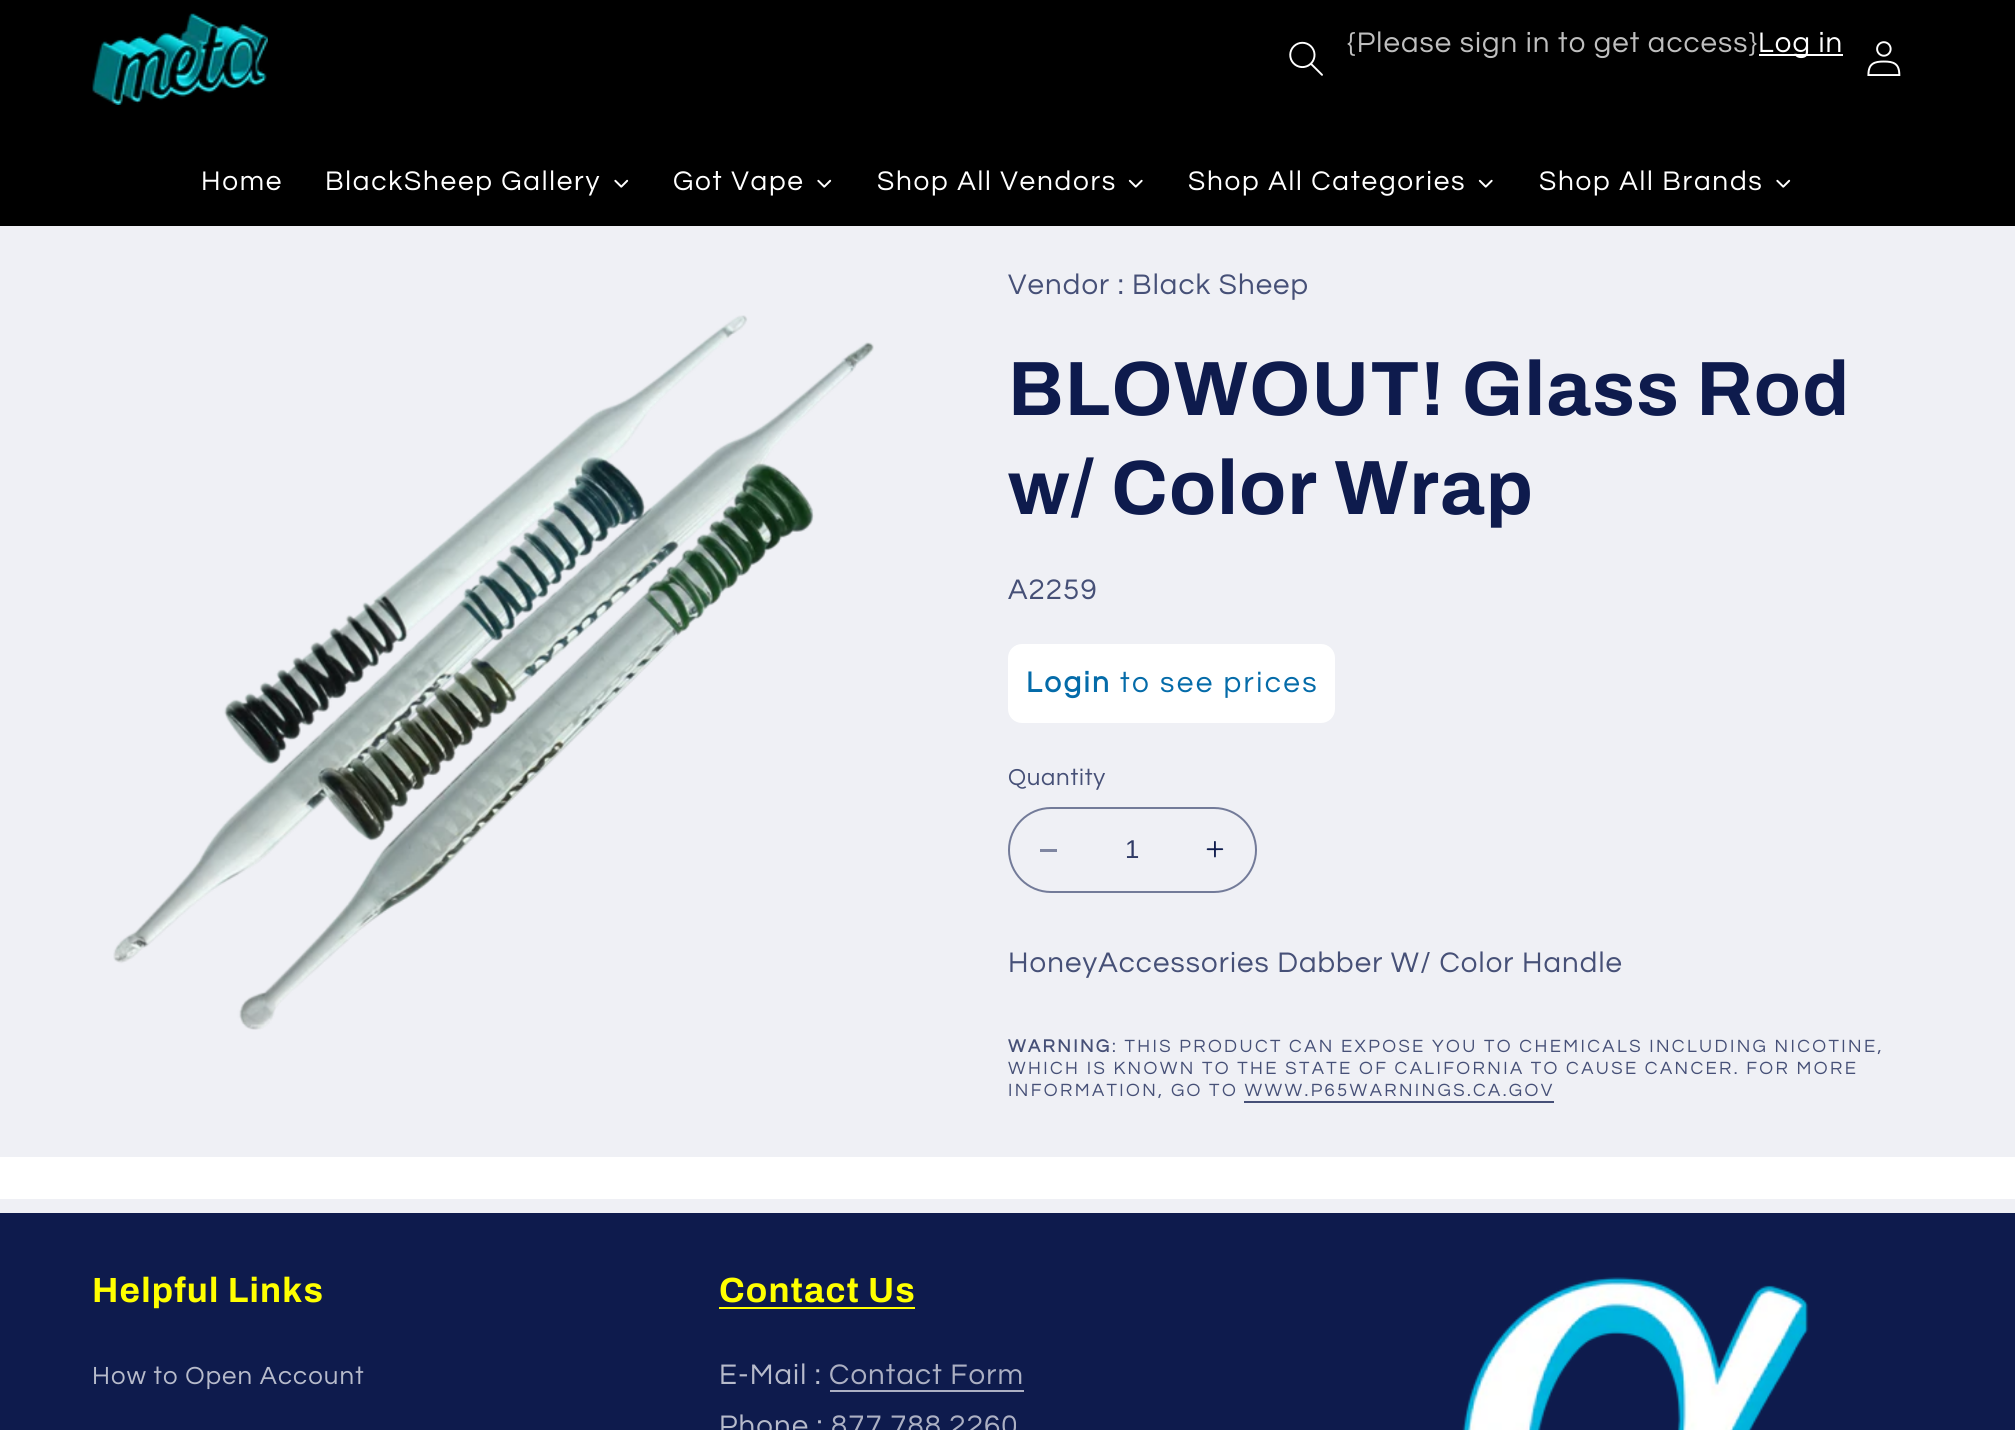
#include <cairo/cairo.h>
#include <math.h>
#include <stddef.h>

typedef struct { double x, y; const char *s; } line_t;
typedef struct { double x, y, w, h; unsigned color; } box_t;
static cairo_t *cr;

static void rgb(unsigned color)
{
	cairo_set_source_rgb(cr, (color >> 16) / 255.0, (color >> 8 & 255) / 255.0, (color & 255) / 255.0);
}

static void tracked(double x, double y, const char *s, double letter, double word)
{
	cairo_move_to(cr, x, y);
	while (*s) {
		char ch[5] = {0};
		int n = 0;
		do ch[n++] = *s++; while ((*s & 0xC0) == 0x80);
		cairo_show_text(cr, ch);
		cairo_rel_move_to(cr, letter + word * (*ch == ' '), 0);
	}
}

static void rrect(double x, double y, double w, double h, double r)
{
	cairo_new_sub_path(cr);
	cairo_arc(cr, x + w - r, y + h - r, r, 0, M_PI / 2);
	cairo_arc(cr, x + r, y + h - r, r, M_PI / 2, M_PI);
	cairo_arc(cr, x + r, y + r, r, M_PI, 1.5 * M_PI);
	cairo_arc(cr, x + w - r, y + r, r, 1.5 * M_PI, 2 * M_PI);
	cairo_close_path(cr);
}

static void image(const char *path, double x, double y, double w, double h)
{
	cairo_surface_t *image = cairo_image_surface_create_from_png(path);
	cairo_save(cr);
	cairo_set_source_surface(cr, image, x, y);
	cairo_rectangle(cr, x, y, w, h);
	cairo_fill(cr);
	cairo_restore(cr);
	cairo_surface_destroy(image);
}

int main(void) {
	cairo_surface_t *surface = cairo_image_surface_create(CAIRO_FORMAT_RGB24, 2015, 1430);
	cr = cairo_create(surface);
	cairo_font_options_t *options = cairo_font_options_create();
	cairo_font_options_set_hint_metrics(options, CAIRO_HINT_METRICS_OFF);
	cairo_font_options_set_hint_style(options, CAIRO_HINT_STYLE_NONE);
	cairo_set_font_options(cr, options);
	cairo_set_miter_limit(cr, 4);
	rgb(0xeff0f5);
	cairo_paint(cr);
	rgb(0x000000);
	cairo_rectangle(cr, 0, 0, 2015, 226);
	cairo_fill(cr);
	image("img/1.png", 92, 13, 176, 92);
	image("img/2.png", 1289, 41, 34, 35);
	rgb(0xffffff);
	cairo_rectangle(cr, 1759, 54, 84, 2);
	cairo_fill(cr);
	image("img/3.png", 1867, 41, 34, 35);
	image("img/4.png", 614, 179, 15, 9);
	image("img/4.png", 817, 179, 15, 9);
	image("img/5.png", 1128, 179, 15, 9);
	image("img/5.png", 1478, 179, 15, 9);
	image("img/4.png", 1776, 179, 15, 9);
	image("img/6.png", 113, 315, 761, 715);
	rrect(1008, 644, 327, 79, 14);
	cairo_fill(cr);
	rgb(0x7f86a1);
	cairo_rectangle(cr, 1040, 849, 17, 3);
	cairo_fill(cr);
	image("img/7.png", 1206, 841, 18, 17);
	rrect(1009, 808, 247, 84, 42);
	rgb(0x737b99);
	cairo_stroke(cr);
	{
		static const box_t items[] = {
			{1244, 1101, 310, 2, 0x465077},
			{0, 1157, 2015, 42, 0xffffff},
			{0, 1213, 2015, 217, 0x0e1b4d},
			{719, 1307, 196, 2, 0xffff00},
			{830, 1390, 194, 2, 0xacb0c3},
		};
		for (size_t i = 0; i < sizeof items / sizeof *items; i++) {
			rgb(items[i].color);
			cairo_rectangle(cr, items[i].x, items[i].y, items[i].w, items[i].h);
			cairo_fill(cr);
		}
	}
	image("img/8.png", 1462, 1277, 347, 153);
	cairo_select_font_face(cr, "Questrial", CAIRO_FONT_SLANT_NORMAL, CAIRO_FONT_WEIGHT_NORMAL);
	cairo_set_font_size(cr, 29.4);
	rgb(0xbfbfbf);
	tracked(1347, 52, "{Please sign in to get access}", 1.1, 0);
	rgb(0xffffff);
	tracked(1758, 52, "Log in", 1.1, 0);
	cairo_set_font_size(cr, 28);
	{
		static const line_t items[] = {
			{201, 190, "Home"},
			{325, 190, "BlackSheep Gallery"},
			{673, 190, "Got Vape"},
			{877, 190, "Shop All Vendors"},
			{1188, 190, "Shop All Categories"},
			{1539, 190, "Shop All Brands"},
		};
		for (size_t i = 0; i < sizeof items / sizeof *items; i++) {
			tracked(items[i].x, items[i].y, items[i].s, 1.75, 0);
		}
	}
	cairo_set_font_size(cr, 29.4);
	rgb(0x465077);
	tracked(1008, 294, "Vendor : Black Sheep", 1.1, 0);
	cairo_select_font_face(cr, "Archivo", CAIRO_FONT_SLANT_NORMAL, CAIRO_FONT_WEIGHT_BOLD);
	cairo_set_font_size(cr, 77);
	rgb(0x0e1b4d);
	tracked(1008, 415, "BLOWOUT! Glass Rod", 1.2, 0);
	tracked(1008, 514, "w/ Color Wrap", 1.2, 0);
	cairo_select_font_face(cr, "Questrial", CAIRO_FONT_SLANT_NORMAL, CAIRO_FONT_WEIGHT_NORMAL);
	cairo_set_font_size(cr, 29.4);
	rgb(0x465077);
	tracked(1008, 599, "A2259", 1.1, 0);
	cairo_select_font_face(cr, "Questrial", CAIRO_FONT_SLANT_NORMAL, CAIRO_FONT_WEIGHT_BOLD);
	cairo_set_font_size(cr, 29.75);
	rgb(0x046ba9);
	tracked(1026, 692, "Login", 2.4, 0);
	cairo_select_font_face(cr, "Questrial", CAIRO_FONT_SLANT_NORMAL, CAIRO_FONT_WEIGHT_NORMAL);
	tracked(1120, 692, "to see prices", 2.4, 0);
	cairo_set_font_size(cr, 24);
	rgb(0x465077);
	tracked(1008, 785, "Quantity", 0.75, 0);
	cairo_select_font_face(cr, "Liberation Sans", CAIRO_FONT_SLANT_NORMAL, CAIRO_FONT_WEIGHT_NORMAL);
	cairo_set_font_size(cr, 25.75);
	rgb(0x303b66);
	cairo_move_to(cr, 1125, 858);
	cairo_show_text(cr, "1");
	cairo_select_font_face(cr, "Questrial", CAIRO_FONT_SLANT_NORMAL, CAIRO_FONT_WEIGHT_NORMAL);
	cairo_set_font_size(cr, 29.4);
	rgb(0x465077);
	tracked(1008, 972, "HoneyAccessories Dabber W/ Color Handle", 1.1, 0);
	cairo_select_font_face(cr, "Questrial", CAIRO_FONT_SLANT_NORMAL, CAIRO_FONT_WEIGHT_BOLD);
	cairo_set_font_size(cr, 18.4);
	tracked(1008, 1052, "WARNING", 2.4, 0);
	cairo_select_font_face(cr, "Questrial", CAIRO_FONT_SLANT_NORMAL, CAIRO_FONT_WEIGHT_NORMAL);
	{
		static const line_t items[] = {
			{1112, 1052, ": THIS PRODUCT CAN EXPOSE YOU TO CHEMICALS INCLUDING NICOTINE,"},
			{1008, 1074, "WHICH IS KNOWN TO THE STATE OF CALIFORNIA TO CAUSE CANCER. FOR MORE"},
			{1008, 1096, "INFORMATION, GO TO WWW.P65WARNINGS.CA.GOV"},
		};
		for (size_t i = 0; i < sizeof items / sizeof *items; i++) {
			tracked(items[i].x, items[i].y, items[i].s, 2.4, 0);
		}
	}
	cairo_select_font_face(cr, "Archivo", CAIRO_FONT_SLANT_NORMAL, CAIRO_FONT_WEIGHT_BOLD);
	cairo_set_font_size(cr, 35);
	rgb(0xffff00);
	tracked(92, 1302, "Helpful Links", 1.2, 0);
	cairo_select_font_face(cr, "Questrial", CAIRO_FONT_SLANT_NORMAL, CAIRO_FONT_WEIGHT_NORMAL);
	cairo_set_font_size(cr, 25.75);
	rgb(0xb7bbcb);
	tracked(92, 1384, "How to Open Account", 1.1, 0);
	cairo_select_font_face(cr, "Archivo", CAIRO_FONT_SLANT_NORMAL, CAIRO_FONT_WEIGHT_BOLD);
	cairo_set_font_size(cr, 35);
	rgb(0xffff00);
	tracked(719, 1302, "Contact Us", 1.2, 0);
	cairo_select_font_face(cr, "Questrial", CAIRO_FONT_SLANT_NORMAL, CAIRO_FONT_WEIGHT_NORMAL);
	cairo_set_font_size(cr, 29.4);
	rgb(0xb7bbcb);
	tracked(719, 1384, "E-Mail :", 1.1, 0);
	rgb(0xacb0c3);
	tracked(829, 1384, "Contact Form", 1.1, 0);
	rgb(0xb7bbcb);
	tracked(719, 1435, "Phone :", 1.1, 0);
	rgb(0xacb0c3);
	tracked(831, 1435, "877 788 2260", 1.1, 0);
	cairo_surface_write_to_png(surface, "page.png");
	cairo_font_options_destroy(options);
	cairo_destroy(cr);
	cairo_surface_destroy(surface);
	return 0;
}
